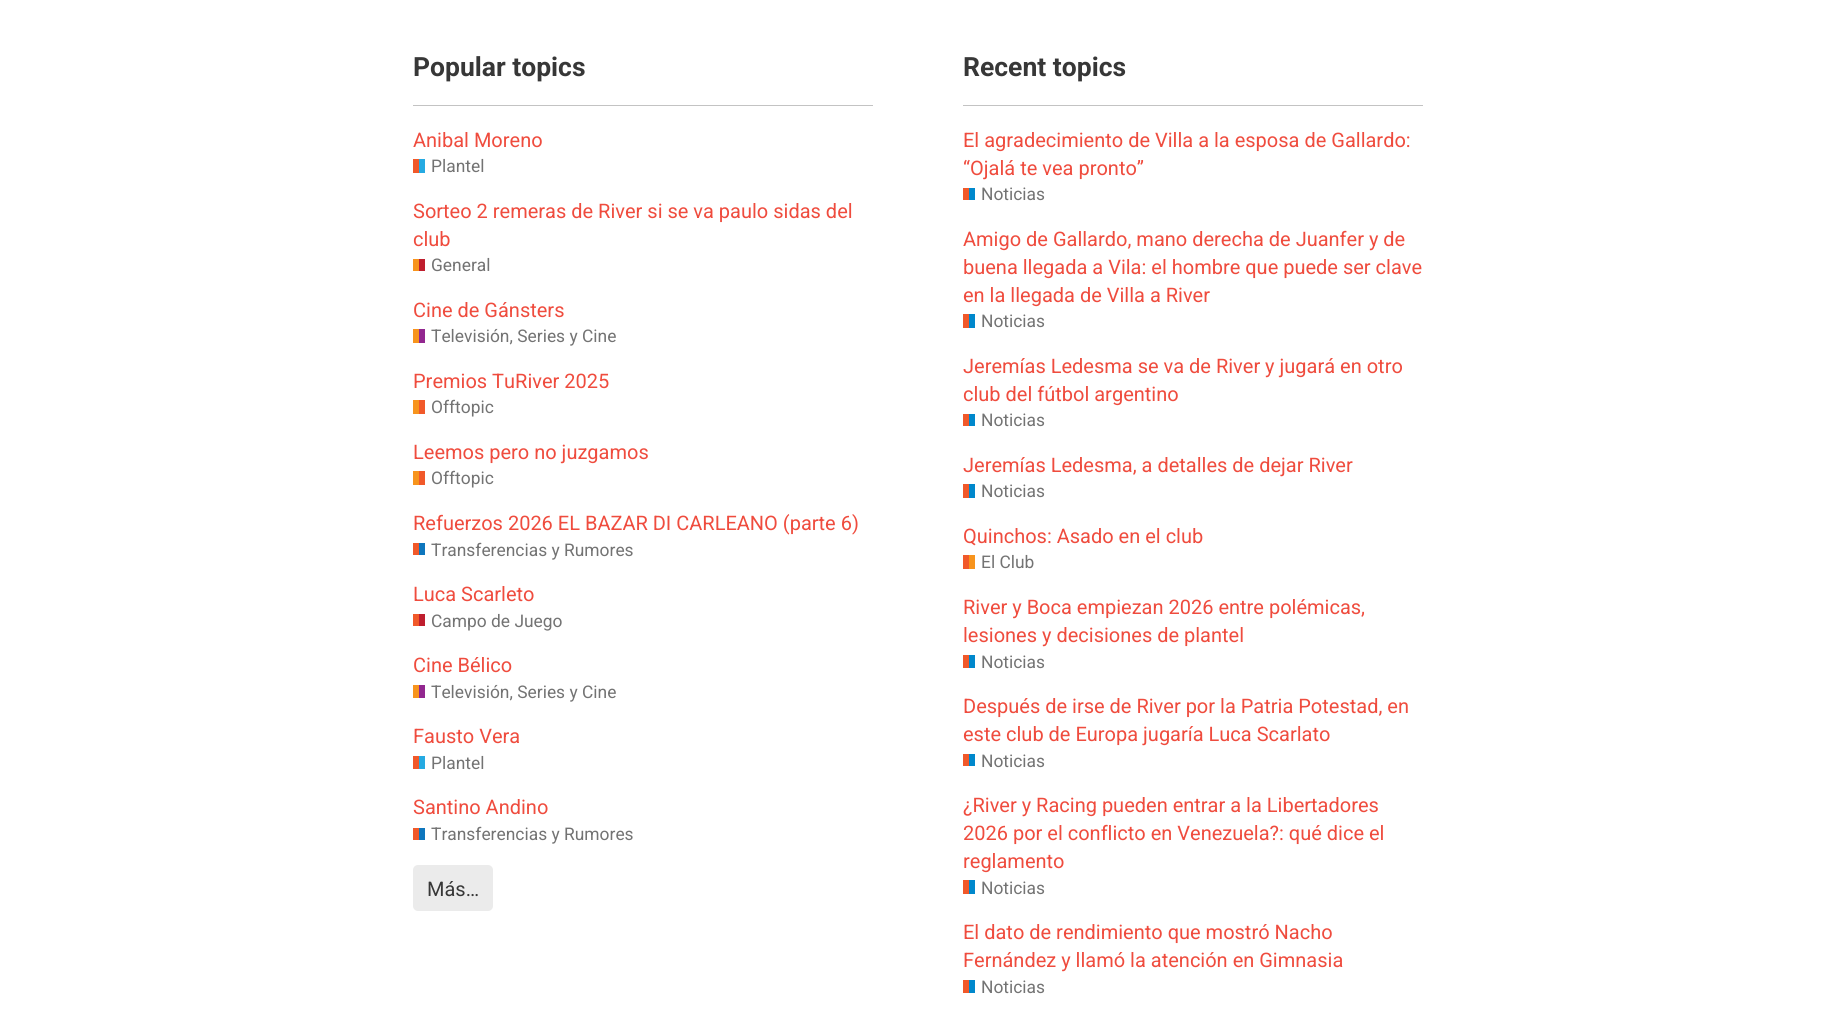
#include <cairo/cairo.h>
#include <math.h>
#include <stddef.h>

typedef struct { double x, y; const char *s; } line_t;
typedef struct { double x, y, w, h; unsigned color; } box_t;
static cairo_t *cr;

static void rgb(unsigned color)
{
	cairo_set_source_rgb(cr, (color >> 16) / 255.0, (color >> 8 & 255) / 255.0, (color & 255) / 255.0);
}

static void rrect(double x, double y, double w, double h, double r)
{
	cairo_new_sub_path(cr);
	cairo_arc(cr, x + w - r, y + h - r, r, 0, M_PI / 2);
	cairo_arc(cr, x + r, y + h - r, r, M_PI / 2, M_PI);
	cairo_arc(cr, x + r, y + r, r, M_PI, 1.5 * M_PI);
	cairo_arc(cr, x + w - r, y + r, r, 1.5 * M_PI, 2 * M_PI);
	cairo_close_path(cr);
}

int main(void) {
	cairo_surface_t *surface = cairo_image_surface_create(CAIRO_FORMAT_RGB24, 1834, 1025);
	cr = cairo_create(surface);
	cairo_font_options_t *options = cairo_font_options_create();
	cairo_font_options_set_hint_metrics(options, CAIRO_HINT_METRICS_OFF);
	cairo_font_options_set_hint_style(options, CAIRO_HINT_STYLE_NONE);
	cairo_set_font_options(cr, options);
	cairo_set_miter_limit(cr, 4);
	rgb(0xffffff);
	cairo_paint(cr);
	{
		static const box_t items[] = {
			{413, 105, 460, 1, 0xc3c3c3},
			{413, 159, 6, 14, 0xf1592a},
			{419, 159, 6, 14, 0x25aae2},
			{413, 259, 6, 12, 0xf7941d},
			{419, 259, 6, 12, 0xbf1e2e},
			{413, 329, 6, 14, 0xf7941d},
			{419, 329, 6, 14, 0x92278f},
			{413, 400, 6, 14, 0xf7941d},
			{419, 400, 6, 14, 0xf1592a},
			{413, 471, 6, 14, 0xf7941d},
			{419, 471, 6, 14, 0xf1592a},
			{413, 543, 6, 12, 0xf1592a},
			{419, 543, 6, 12, 0x0e76bd},
			{413, 614, 6, 12, 0xf1592a},
			{419, 614, 6, 12, 0xbf1e2e},
			{413, 685, 6, 13, 0xf7941d},
			{419, 685, 6, 13, 0x92278f},
			{413, 756, 6, 13, 0xf1592a},
			{419, 756, 6, 13, 0x25aae2},
			{413, 828, 6, 12, 0xf1592a},
			{419, 828, 6, 12, 0x0e76bd},
		};
		for (size_t i = 0; i < sizeof items / sizeof *items; i++) {
			rgb(items[i].color);
			cairo_rectangle(cr, items[i].x, items[i].y, items[i].w, items[i].h);
			cairo_fill(cr);
		}
	}
	rgb(0xebebeb);
	rrect(413, 865, 80, 46, 5);
	cairo_fill(cr);
	{
		static const box_t items[] = {
			{963, 105, 460, 1, 0xc3c3c3},
			{963, 188, 6, 12, 0xf1592a},
			{969, 188, 6, 12, 0x0088cc},
			{963, 314, 6, 14, 0xf1592a},
			{969, 314, 6, 14, 0x0088cc},
			{963, 414, 6, 12, 0xf1592a},
			{969, 414, 6, 12, 0x0088cc},
			{963, 484, 6, 14, 0xf1592a},
			{969, 484, 6, 14, 0x0088cc},
			{963, 555, 6, 14, 0xf1592a},
			{969, 555, 6, 14, 0xf7941d},
			{963, 655, 6, 13, 0xf1592a},
			{969, 655, 6, 13, 0x0088cc},
			{963, 754, 6, 12, 0xf1592a},
			{969, 754, 6, 12, 0x0088cc},
			{963, 880, 6, 14, 0xf1592a},
			{969, 880, 6, 14, 0x0088cc},
			{963, 980, 6, 13, 0xf1592a},
			{969, 980, 6, 13, 0x0088cc},
		};
		for (size_t i = 0; i < sizeof items / sizeof *items; i++) {
			rgb(items[i].color);
			cairo_rectangle(cr, items[i].x, items[i].y, items[i].w, items[i].h);
			cairo_fill(cr);
		}
	}
	cairo_select_font_face(cr, "Roboto", CAIRO_FONT_SLANT_NORMAL, CAIRO_FONT_WEIGHT_BOLD);
	cairo_set_font_size(cr, 26.5);
	rgb(0x373737);
	cairo_move_to(cr, 413, 76);
	cairo_show_text(cr, "Popular topics");
	cairo_select_font_face(cr, "Roboto", CAIRO_FONT_SLANT_NORMAL, CAIRO_FONT_WEIGHT_NORMAL);
	cairo_set_font_size(cr, 20);
	rgb(0xef4c3e);
	cairo_move_to(cr, 413, 147);
	cairo_show_text(cr, "Anibal Moreno");
	cairo_set_font_size(cr, 17.4);
	rgb(0x737373);
	cairo_move_to(cr, 431, 172);
	cairo_show_text(cr, "Plantel");
	cairo_set_font_size(cr, 20);
	rgb(0xef4c3e);
	cairo_move_to(cr, 413, 218);
	cairo_show_text(cr, "Sorteo 2 remeras de River si se va paulo sidas del");
	cairo_move_to(cr, 413, 246);
	cairo_show_text(cr, "club");
	cairo_set_font_size(cr, 17.4);
	rgb(0x737373);
	cairo_move_to(cr, 431, 271);
	cairo_show_text(cr, "General");
	cairo_set_font_size(cr, 20);
	rgb(0xef4c3e);
	cairo_move_to(cr, 413, 317);
	cairo_show_text(cr, "Cine de Gánsters");
	cairo_set_font_size(cr, 17.4);
	rgb(0x737373);
	cairo_move_to(cr, 431, 342);
	cairo_show_text(cr, "Televisión, Series y Cine");
	cairo_set_font_size(cr, 20);
	rgb(0xef4c3e);
	cairo_move_to(cr, 413, 388);
	cairo_show_text(cr, "Premios TuRiver 2025");
	cairo_set_font_size(cr, 17.4);
	rgb(0x737373);
	cairo_move_to(cr, 431, 413);
	cairo_show_text(cr, "Offtopic");
	cairo_set_font_size(cr, 20);
	rgb(0xef4c3e);
	cairo_move_to(cr, 413, 459);
	cairo_show_text(cr, "Leemos pero no juzgamos");
	cairo_set_font_size(cr, 17.4);
	rgb(0x737373);
	cairo_move_to(cr, 431, 484);
	cairo_show_text(cr, "Offtopic");
	cairo_set_font_size(cr, 20);
	rgb(0xef4c3e);
	cairo_move_to(cr, 413, 530);
	cairo_show_text(cr, "Refuerzos 2026 EL BAZAR DI CARLEANO (parte 6)");
	cairo_set_font_size(cr, 17.4);
	rgb(0x737373);
	cairo_move_to(cr, 431, 556);
	cairo_show_text(cr, "Transferencias y Rumores");
	cairo_set_font_size(cr, 20);
	rgb(0xef4c3e);
	cairo_move_to(cr, 413, 601);
	cairo_show_text(cr, "Luca Scarleto");
	cairo_set_font_size(cr, 17.4);
	rgb(0x737373);
	cairo_move_to(cr, 431, 627);
	cairo_show_text(cr, "Campo de Juego");
	cairo_set_font_size(cr, 20);
	rgb(0xef4c3e);
	cairo_move_to(cr, 413, 672);
	cairo_show_text(cr, "Cine Bélico");
	cairo_set_font_size(cr, 17.4);
	rgb(0x737373);
	cairo_move_to(cr, 431, 698);
	cairo_show_text(cr, "Televisión, Series y Cine");
	cairo_set_font_size(cr, 20);
	rgb(0xef4c3e);
	cairo_move_to(cr, 413, 743);
	cairo_show_text(cr, "Fausto Vera");
	cairo_set_font_size(cr, 17.4);
	rgb(0x737373);
	cairo_move_to(cr, 431, 769);
	cairo_show_text(cr, "Plantel");
	cairo_set_font_size(cr, 20);
	rgb(0xef4c3e);
	cairo_move_to(cr, 413, 814);
	cairo_show_text(cr, "Santino Andino");
	cairo_set_font_size(cr, 17.4);
	rgb(0x737373);
	cairo_move_to(cr, 431, 840);
	cairo_show_text(cr, "Transferencias y Rumores");
	cairo_set_font_size(cr, 20);
	rgb(0x373737);
	cairo_move_to(cr, 427, 896);
	cairo_show_text(cr, "Más…");
	cairo_select_font_face(cr, "Roboto", CAIRO_FONT_SLANT_NORMAL, CAIRO_FONT_WEIGHT_BOLD);
	cairo_set_font_size(cr, 26.5);
	cairo_move_to(cr, 963, 76);
	cairo_show_text(cr, "Recent topics");
	cairo_select_font_face(cr, "Roboto", CAIRO_FONT_SLANT_NORMAL, CAIRO_FONT_WEIGHT_NORMAL);
	cairo_set_font_size(cr, 20);
	rgb(0xef4c3e);
	cairo_move_to(cr, 963, 147);
	cairo_show_text(cr, "El agradecimiento de Villa a la esposa de Gallardo:");
	cairo_move_to(cr, 963, 175);
	cairo_show_text(cr, "“Ojalá te vea pronto”");
	cairo_set_font_size(cr, 17.4);
	rgb(0x737373);
	cairo_move_to(cr, 981, 200);
	cairo_show_text(cr, "Noticias");
	cairo_set_font_size(cr, 20);
	rgb(0xef4c3e);
	{
		static const line_t items[] = {
			{963, 246, "Amigo de Gallardo, mano derecha de Juanfer y de"},
			{963, 274, "buena llegada a Vila: el hombre que puede ser clave"},
			{963, 302, "en la llegada de Villa a River"},
		};
		for (size_t i = 0; i < sizeof items / sizeof *items; i++) {
			cairo_move_to(cr, items[i].x, items[i].y);
			cairo_show_text(cr, items[i].s);
		}
	}
	cairo_set_font_size(cr, 17.4);
	rgb(0x737373);
	cairo_move_to(cr, 981, 327);
	cairo_show_text(cr, "Noticias");
	cairo_set_font_size(cr, 20);
	rgb(0xef4c3e);
	cairo_move_to(cr, 963, 373);
	cairo_show_text(cr, "Jeremías Ledesma se va de River y jugará en otro");
	cairo_move_to(cr, 963, 401);
	cairo_show_text(cr, "club del fútbol argentino");
	cairo_set_font_size(cr, 17.4);
	rgb(0x737373);
	cairo_move_to(cr, 981, 426);
	cairo_show_text(cr, "Noticias");
	cairo_set_font_size(cr, 20);
	rgb(0xef4c3e);
	cairo_move_to(cr, 963, 472);
	cairo_show_text(cr, "Jeremías Ledesma, a detalles de dejar River");
	cairo_set_font_size(cr, 17.4);
	rgb(0x737373);
	cairo_move_to(cr, 981, 497);
	cairo_show_text(cr, "Noticias");
	cairo_set_font_size(cr, 20);
	rgb(0xef4c3e);
	cairo_move_to(cr, 963, 543);
	cairo_show_text(cr, "Quinchos: Asado en el club");
	cairo_set_font_size(cr, 17.4);
	rgb(0x737373);
	cairo_move_to(cr, 981, 568);
	cairo_show_text(cr, "El Club");
	cairo_set_font_size(cr, 20);
	rgb(0xef4c3e);
	cairo_move_to(cr, 963, 614);
	cairo_show_text(cr, "River y Boca empiezan 2026 entre polémicas,");
	cairo_move_to(cr, 963, 642);
	cairo_show_text(cr, "lesiones y decisiones de plantel");
	cairo_set_font_size(cr, 17.4);
	rgb(0x737373);
	cairo_move_to(cr, 981, 668);
	cairo_show_text(cr, "Noticias");
	cairo_set_font_size(cr, 20);
	rgb(0xef4c3e);
	cairo_move_to(cr, 963, 713);
	cairo_show_text(cr, "Después de irse de River por la Patria Potestad, en");
	cairo_move_to(cr, 963, 741);
	cairo_show_text(cr, "este club de Europa jugaría Luca Scarlato");
	cairo_set_font_size(cr, 17.4);
	rgb(0x737373);
	cairo_move_to(cr, 981, 767);
	cairo_show_text(cr, "Noticias");
	cairo_set_font_size(cr, 20);
	rgb(0xef4c3e);
	{
		static const line_t items[] = {
			{963, 812, "¿River y Racing pueden entrar a la Libertadores"},
			{963, 840, "2026 por el conflicto en Venezuela?: qué dice el"},
			{963, 868, "reglamento"},
		};
		for (size_t i = 0; i < sizeof items / sizeof *items; i++) {
			cairo_move_to(cr, items[i].x, items[i].y);
			cairo_show_text(cr, items[i].s);
		}
	}
	cairo_set_font_size(cr, 17.4);
	rgb(0x737373);
	cairo_move_to(cr, 981, 894);
	cairo_show_text(cr, "Noticias");
	cairo_set_font_size(cr, 20);
	rgb(0xef4c3e);
	cairo_move_to(cr, 963, 939);
	cairo_show_text(cr, "El dato de rendimiento que mostró Nacho");
	cairo_move_to(cr, 963, 967);
	cairo_show_text(cr, "Fernández y llamó la atención en Gimnasia");
	cairo_set_font_size(cr, 17.4);
	rgb(0x737373);
	cairo_move_to(cr, 981, 993);
	cairo_show_text(cr, "Noticias");
	cairo_surface_write_to_png(surface, "page.png");
	cairo_font_options_destroy(options);
	cairo_destroy(cr);
	cairo_surface_destroy(surface);
	return 0;
}
